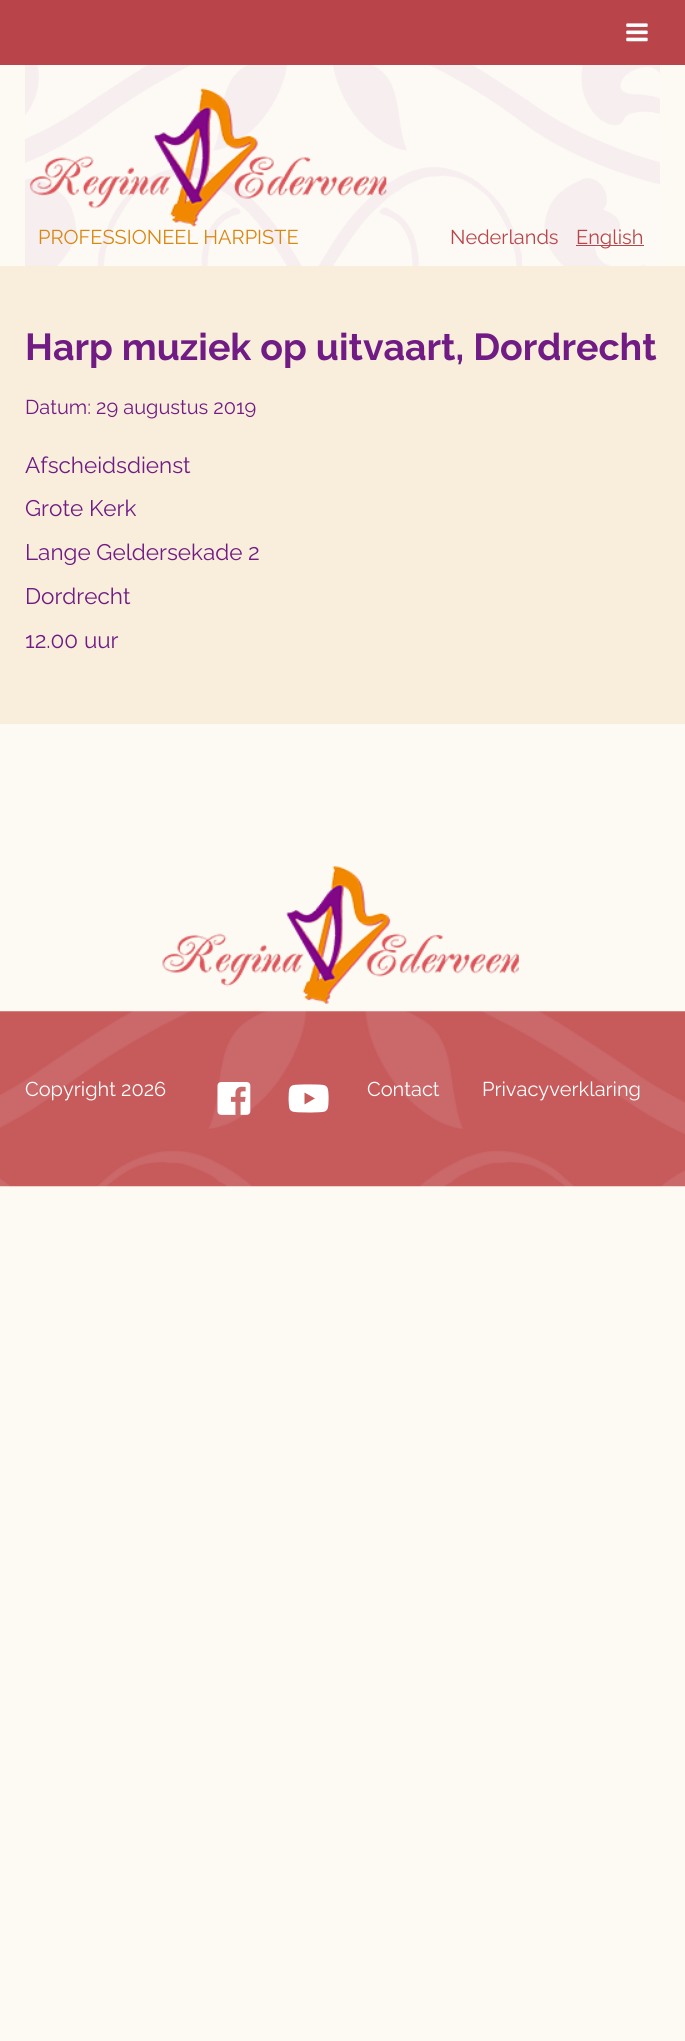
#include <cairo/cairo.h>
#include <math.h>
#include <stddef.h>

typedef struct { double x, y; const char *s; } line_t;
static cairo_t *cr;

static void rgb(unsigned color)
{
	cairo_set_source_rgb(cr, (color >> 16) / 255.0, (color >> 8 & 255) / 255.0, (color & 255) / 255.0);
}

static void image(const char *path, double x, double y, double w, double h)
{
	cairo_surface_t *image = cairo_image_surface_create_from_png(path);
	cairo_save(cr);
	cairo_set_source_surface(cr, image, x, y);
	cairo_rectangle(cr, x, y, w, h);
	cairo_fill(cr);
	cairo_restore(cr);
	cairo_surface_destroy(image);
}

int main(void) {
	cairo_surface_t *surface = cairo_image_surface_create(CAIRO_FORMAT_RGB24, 685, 2041);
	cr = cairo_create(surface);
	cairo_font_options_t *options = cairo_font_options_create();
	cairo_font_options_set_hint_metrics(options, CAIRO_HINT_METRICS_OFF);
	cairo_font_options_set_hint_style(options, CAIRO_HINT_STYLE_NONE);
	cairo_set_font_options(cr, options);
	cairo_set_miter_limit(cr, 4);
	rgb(0xfdf9f3);
	cairo_paint(cr);
	rgb(0xb9454a);
	cairo_rectangle(cr, 0, 0, 685, 65);
	cairo_fill(cr);
	image("img/1.png", 626, 23, 22, 19);
	image("img/2.png", 25, 65, 635, 201);
	image("img/3.png", 29, 88, 358, 139);
	cairo_rectangle(cr, 576, 245, 68, 1);
	cairo_fill(cr);
	rgb(0xf9eddc);
	cairo_rectangle(cr, 0, 266, 685, 458);
	cairo_fill(cr);
	image("img/4.png", 162, 866, 357, 138);
	image("img/5.png", 0, 1011, 685, 176);
	image("img/6.png", 217, 1082, 34, 33);
	image("img/7.png", 288, 1084, 41, 29);
	cairo_select_font_face(cr, "Raleway", CAIRO_FONT_SLANT_NORMAL, CAIRO_FONT_WEIGHT_NORMAL);
	cairo_set_font_size(cr, 20);
	rgb(0xd98712);
	cairo_move_to(cr, 38, 244);
	cairo_show_text(cr, "PROFESSIONEEL HARPISTE");
	rgb(0xb9454a);
	cairo_move_to(cr, 450, 244);
	cairo_show_text(cr, "Nederlands");
	cairo_move_to(cr, 576, 244);
	cairo_show_text(cr, "English");
	cairo_select_font_face(cr, "Raleway", CAIRO_FONT_SLANT_NORMAL, CAIRO_FONT_WEIGHT_BOLD);
	cairo_set_font_size(cr, 37.5);
	rgb(0x701c84);
	cairo_move_to(cr, 25, 360);
	cairo_show_text(cr, "Harp muziek op uitvaart, Dordrecht");
	cairo_select_font_face(cr, "Raleway", CAIRO_FONT_SLANT_NORMAL, CAIRO_FONT_WEIGHT_NORMAL);
	cairo_set_font_size(cr, 20);
	cairo_move_to(cr, 25, 414);
	cairo_show_text(cr, "Datum: 29 augustus 2019");
	cairo_set_font_size(cr, 22.5);
	{
		static const line_t items[] = {
			{25, 473, "Afscheidsdienst"},
			{25, 516, "Grote Kerk"},
			{25, 560, "Lange Geldersekade 2"},
			{25, 604, "Dordrecht"},
			{25, 648, "12.00 uur"},
		};
		for (size_t i = 0; i < sizeof items / sizeof *items; i++) {
			cairo_move_to(cr, items[i].x, items[i].y);
			cairo_show_text(cr, items[i].s);
		}
	}
	cairo_set_font_size(cr, 20);
	rgb(0xffffff);
	{
		static const line_t items[] = {
			{25, 1096, "Copyright 2026"},
			{367, 1096, "Contact"},
			{482, 1096, "Privacyverklaring"},
		};
		for (size_t i = 0; i < sizeof items / sizeof *items; i++) {
			cairo_move_to(cr, items[i].x, items[i].y);
			cairo_show_text(cr, items[i].s);
		}
	}
	cairo_surface_write_to_png(surface, "page.png");
	cairo_font_options_destroy(options);
	cairo_destroy(cr);
	cairo_surface_destroy(surface);
	return 0;
}
